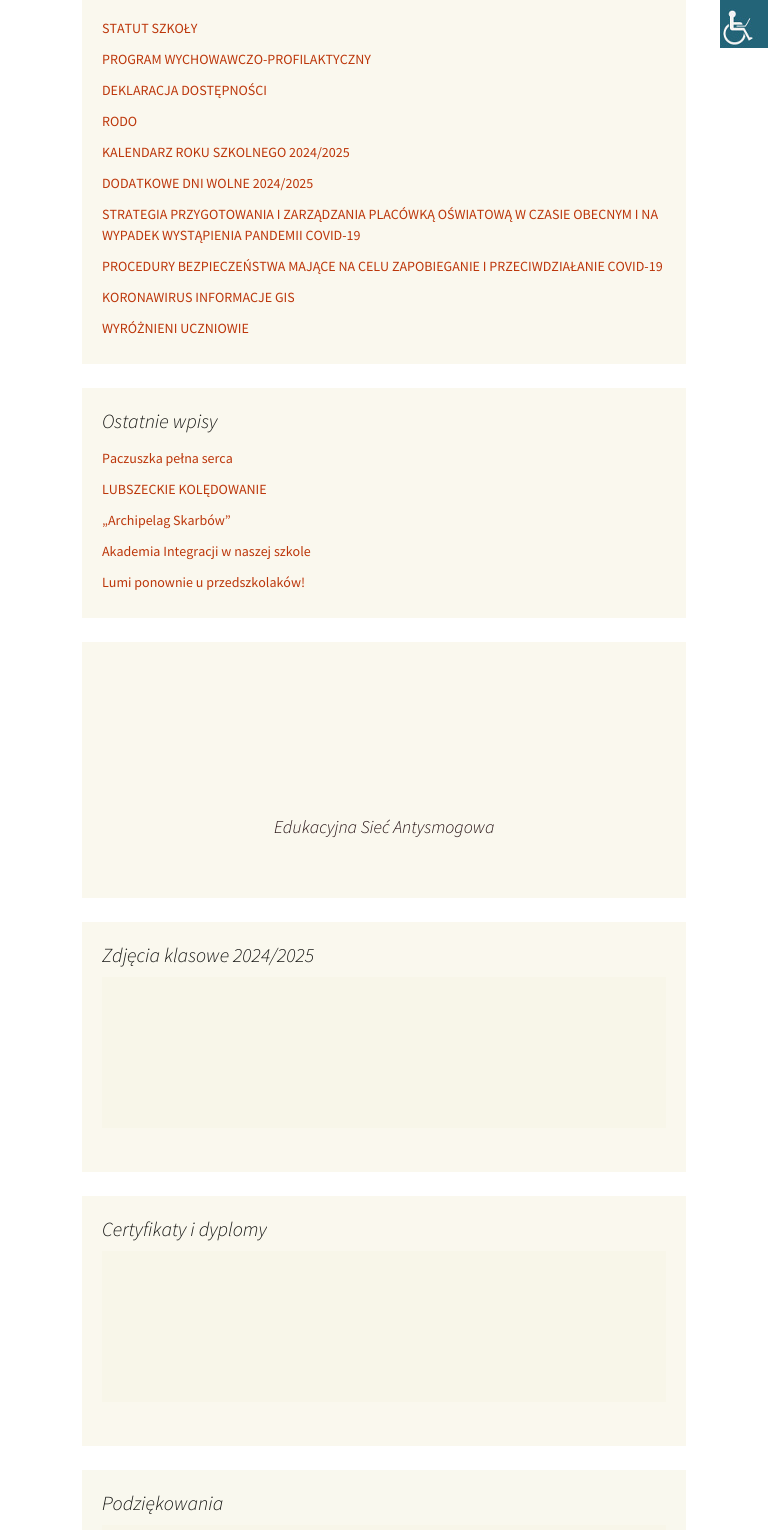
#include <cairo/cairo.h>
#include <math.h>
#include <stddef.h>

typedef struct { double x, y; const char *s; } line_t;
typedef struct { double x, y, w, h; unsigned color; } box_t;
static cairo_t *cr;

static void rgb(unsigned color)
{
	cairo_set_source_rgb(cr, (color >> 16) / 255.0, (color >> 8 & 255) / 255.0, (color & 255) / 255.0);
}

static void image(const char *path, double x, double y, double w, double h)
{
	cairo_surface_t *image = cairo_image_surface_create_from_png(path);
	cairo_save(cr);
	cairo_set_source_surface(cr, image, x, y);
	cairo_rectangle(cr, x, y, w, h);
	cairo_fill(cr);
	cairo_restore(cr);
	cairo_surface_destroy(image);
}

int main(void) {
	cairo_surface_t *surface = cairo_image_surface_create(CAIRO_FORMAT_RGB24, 768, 1530);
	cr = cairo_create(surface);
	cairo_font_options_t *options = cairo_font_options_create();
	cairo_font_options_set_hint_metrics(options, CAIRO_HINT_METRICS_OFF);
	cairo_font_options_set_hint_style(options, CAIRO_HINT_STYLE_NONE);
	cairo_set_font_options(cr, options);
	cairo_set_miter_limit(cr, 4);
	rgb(0xffffff);
	cairo_paint(cr);
	{
		static const box_t items[] = {
			{82, 0, 604, 364, 0xfaf8ee},
			{82, 388, 604, 230, 0xfaf8ee},
			{82, 642, 604, 256, 0xfaf8ee},
			{82, 922, 604, 250, 0xfaf8ee},
			{102, 977, 564, 151, 0xf8f6e9},
			{82, 1196, 604, 250, 0xfaf8ee},
			{102, 1251, 564, 151, 0xf8f6e9},
			{82, 1470, 604, 60, 0xf9f8ee},
			{102, 1525, 564, 5, 0xf8f6e9},
		};
		for (size_t i = 0; i < sizeof items / sizeof *items; i++) {
			rgb(items[i].color);
			cairo_rectangle(cr, items[i].x, items[i].y, items[i].w, items[i].h);
			cairo_fill(cr);
		}
	}
	image("img/1.png", 720, 0, 48, 48);
	cairo_select_font_face(cr, "Source Sans Pro", CAIRO_FONT_SLANT_NORMAL, CAIRO_FONT_WEIGHT_NORMAL);
	cairo_set_font_size(cr, 14);
	rgb(0xbc360a);
	{
		static const line_t items[] = {
			{102, 33, "STATUT SZKOŁY"},
			{102, 64, "PROGRAM WYCHOWAWCZO-PROFILAKTYCZNY"},
			{102, 95, "DEKLARACJA DOSTĘPNOŚCI"},
			{102, 126, "RODO"},
			{102, 157, "KALENDARZ ROKU SZKOLNEGO 2024/2025"},
			{102, 188, "DODATKOWE DNI WOLNE 2024/2025"},
			{102, 219, "STRATEGIA PRZYGOTOWANIA I ZARZĄDZANIA PLACÓWKĄ OŚWIATOWĄ W CZASIE OBECNYM I NA"},
			{102, 240, "WYPADEK WYSTĄPIENIA PANDEMII COVID-19"},
			{102, 271, "PROCEDURY BEZPIECZEŃSTWA MAJĄCE NA CELU ZAPOBIEGANIE I PRZECIWDZIAŁANIE COVID-19"},
			{102, 302, "KORONAWIRUS INFORMACJE GIS"},
			{102, 333, "WYRÓŻNIENI UCZNIOWIE"},
		};
		for (size_t i = 0; i < sizeof items / sizeof *items; i++) {
			cairo_move_to(cr, items[i].x, items[i].y);
			cairo_show_text(cr, items[i].s);
		}
	}
	cairo_select_font_face(cr, "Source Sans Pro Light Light", CAIRO_FONT_SLANT_ITALIC, CAIRO_FONT_WEIGHT_NORMAL);
	cairo_set_font_size(cr, 20);
	rgb(0x141412);
	cairo_move_to(cr, 102, 428);
	cairo_show_text(cr, "Ostatnie wpisy");
	cairo_select_font_face(cr, "Source Sans Pro", CAIRO_FONT_SLANT_NORMAL, CAIRO_FONT_WEIGHT_NORMAL);
	cairo_set_font_size(cr, 14);
	rgb(0xbc360a);
	{
		static const line_t items[] = {
			{102, 463, "Paczuszka pełna serca"},
			{102, 494, "LUBSZECKIE KOLĘDOWANIE"},
			{102, 525, "„Archipelag Skarbów”"},
			{102, 556, "Akademia Integracji w naszej szkole"},
			{102, 587, "Lumi ponownie u przedszkolaków!"},
		};
		for (size_t i = 0; i < sizeof items / sizeof *items; i++) {
			cairo_move_to(cr, items[i].x, items[i].y);
			cairo_show_text(cr, items[i].s);
		}
	}
	cairo_select_font_face(cr, "Source Sans Pro Light Light", CAIRO_FONT_SLANT_ITALIC, CAIRO_FONT_WEIGHT_NORMAL);
	cairo_set_font_size(cr, 18);
	rgb(0x220e10);
	cairo_move_to(cr, 274, 833);
	cairo_show_text(cr, "Edukacyjna Sieć Antysmogowa");
	cairo_set_font_size(cr, 20);
	rgb(0x141412);
	{
		static const line_t items[] = {
			{102, 962, "Zdjęcia klasowe 2024/2025"},
			{102, 1236, "Certyfikaty i dyplomy"},
			{102, 1510, "Podziękowania"},
		};
		for (size_t i = 0; i < sizeof items / sizeof *items; i++) {
			cairo_move_to(cr, items[i].x, items[i].y);
			cairo_show_text(cr, items[i].s);
		}
	}
	cairo_surface_write_to_png(surface, "page.png");
	cairo_font_options_destroy(options);
	cairo_destroy(cr);
	cairo_surface_destroy(surface);
	return 0;
}
